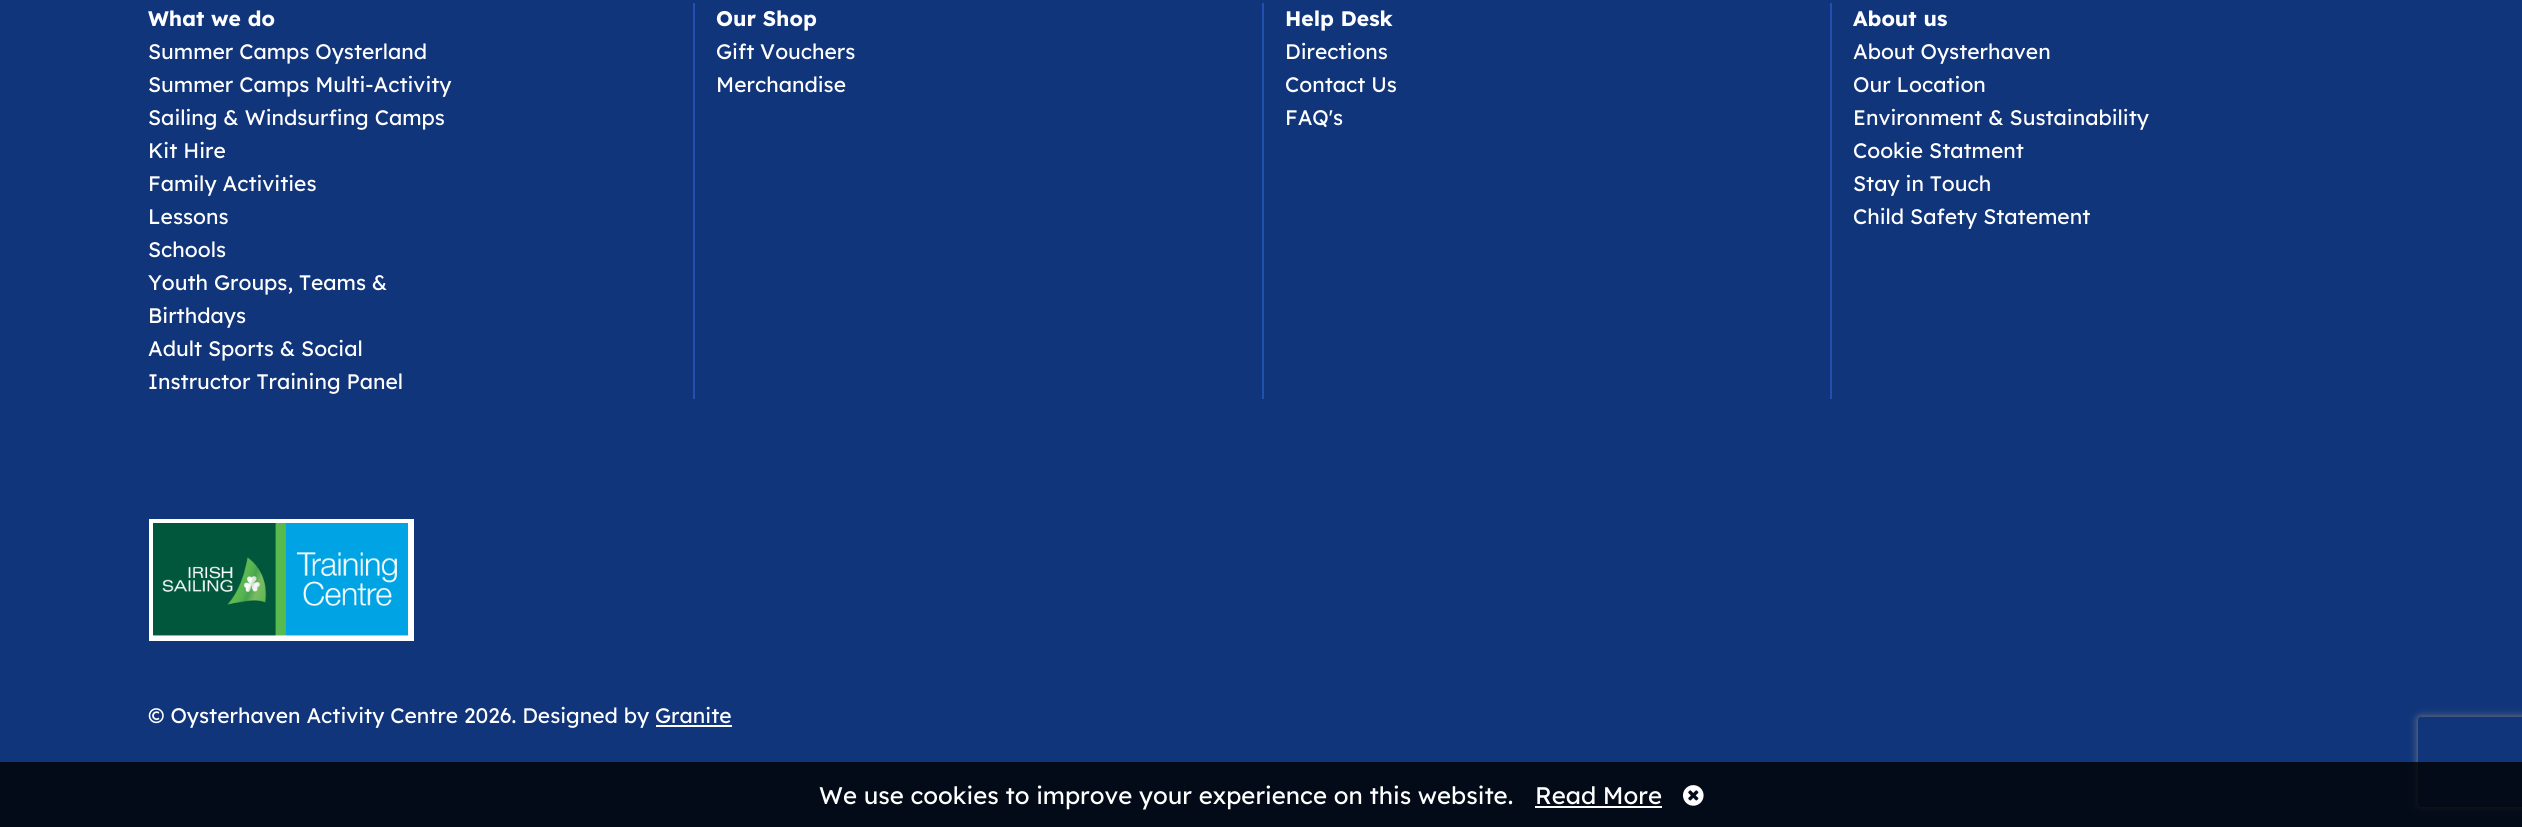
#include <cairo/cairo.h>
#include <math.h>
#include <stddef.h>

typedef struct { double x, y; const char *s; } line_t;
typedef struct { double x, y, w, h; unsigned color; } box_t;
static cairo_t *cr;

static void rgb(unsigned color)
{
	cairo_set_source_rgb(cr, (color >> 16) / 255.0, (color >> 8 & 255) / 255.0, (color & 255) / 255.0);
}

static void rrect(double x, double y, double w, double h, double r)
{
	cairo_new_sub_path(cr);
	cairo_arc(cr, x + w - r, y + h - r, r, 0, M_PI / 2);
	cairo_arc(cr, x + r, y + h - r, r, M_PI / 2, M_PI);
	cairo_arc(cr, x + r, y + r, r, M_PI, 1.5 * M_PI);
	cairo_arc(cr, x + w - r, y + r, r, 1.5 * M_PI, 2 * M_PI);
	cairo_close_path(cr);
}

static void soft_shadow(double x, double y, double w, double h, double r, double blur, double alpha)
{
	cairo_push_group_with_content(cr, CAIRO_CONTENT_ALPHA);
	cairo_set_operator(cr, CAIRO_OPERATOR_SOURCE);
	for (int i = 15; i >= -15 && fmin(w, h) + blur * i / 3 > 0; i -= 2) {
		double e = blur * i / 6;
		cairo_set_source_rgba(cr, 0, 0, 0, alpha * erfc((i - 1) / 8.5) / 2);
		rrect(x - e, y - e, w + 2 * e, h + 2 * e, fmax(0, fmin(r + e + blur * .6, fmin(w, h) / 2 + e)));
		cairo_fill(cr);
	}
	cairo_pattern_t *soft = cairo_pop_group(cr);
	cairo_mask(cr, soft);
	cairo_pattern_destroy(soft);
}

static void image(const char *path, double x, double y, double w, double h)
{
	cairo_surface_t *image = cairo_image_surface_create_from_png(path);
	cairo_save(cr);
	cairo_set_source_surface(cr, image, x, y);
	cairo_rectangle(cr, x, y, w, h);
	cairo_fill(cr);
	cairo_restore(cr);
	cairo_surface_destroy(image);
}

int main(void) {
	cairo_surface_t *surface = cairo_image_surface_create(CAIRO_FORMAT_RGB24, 2522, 827);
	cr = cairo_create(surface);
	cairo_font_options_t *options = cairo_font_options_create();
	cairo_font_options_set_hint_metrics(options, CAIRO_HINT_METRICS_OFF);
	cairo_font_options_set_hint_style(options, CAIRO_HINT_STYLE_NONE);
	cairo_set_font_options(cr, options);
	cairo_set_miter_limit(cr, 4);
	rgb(0x11357b);
	cairo_paint(cr);
	{
		static const box_t items[] = {
			{693, 3, 2, 396, 0x2051b0},
			{1262, 3, 2, 396, 0x2051b0},
			{1830, 3, 2, 396, 0x2051b0},
			{149, 519, 265, 122, 0xffffff},
		};
		for (size_t i = 0; i < sizeof items / sizeof *items; i++) {
			rgb(items[i].color);
			cairo_rectangle(cr, items[i].x, items[i].y, items[i].w, items[i].h);
			cairo_fill(cr);
		}
	}
	image("img/1.png", 153, 523, 255, 113);
	cairo_rectangle(cr, 656, 725, 76, 2);
	cairo_fill(cr);
	cairo_save(cr);
	cairo_set_fill_rule(cr, CAIRO_FILL_RULE_EVEN_ODD);
	cairo_new_path(cr);
	cairo_move_to(cr, 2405, 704);
	cairo_line_to(cr, 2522, 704);
	cairo_line_to(cr, 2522, 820);
	cairo_line_to(cr, 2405, 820);
	cairo_close_path(cr);
	cairo_move_to(cr, 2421, 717);
	cairo_line_to(cr, 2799, 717);
	cairo_curve_to(cr, 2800.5, 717, 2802, 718.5, 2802, 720);
	cairo_line_to(cr, 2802, 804);
	cairo_curve_to(cr, 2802, 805.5, 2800.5, 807, 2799, 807);
	cairo_line_to(cr, 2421, 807);
	cairo_curve_to(cr, 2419.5, 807, 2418, 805.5, 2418, 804);
	cairo_line_to(cr, 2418, 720);
	cairo_curve_to(cr, 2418, 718.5, 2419.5, 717, 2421, 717);
	cairo_close_path(cr);
	cairo_clip(cr);
	rgb(0x808080);
	soft_shadow(2418, 717, 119, 90, 3, 4, 1);
	cairo_restore(cr);
	cairo_set_source_rgba(cr, 0, 0, 0, 0.8);
	cairo_rectangle(cr, 0, 762, 2522, 65);
	cairo_fill(cr);
	rgb(0xffffff);
	cairo_rectangle(cr, 1535, 806, 127, 2);
	cairo_fill(cr);
	image("img/2.png", 1683, 785, 21, 21);
	cairo_select_font_face(cr, "Lexend", CAIRO_FONT_SLANT_NORMAL, CAIRO_FONT_WEIGHT_BOLD);
	cairo_set_font_size(cr, 21);
	cairo_move_to(cr, 148, 26);
	cairo_show_text(cr, "What we do");
	cairo_select_font_face(cr, "Lexend", CAIRO_FONT_SLANT_NORMAL, CAIRO_FONT_WEIGHT_NORMAL);
	{
		static const line_t items[] = {
			{148, 59, "Summer Camps Oysterland"},
			{148, 92, "Summer Camps Multi-Activity"},
			{148, 125, "Sailing & Windsurfing Camps"},
			{148, 158, "Kit Hire"},
			{148, 191, "Family Activities"},
			{148, 224, "Lessons"},
			{148, 257, "Schools"},
			{148, 290, "Youth Groups, Teams &"},
			{148, 323, "Birthdays"},
			{148, 356, "Adult Sports & Social"},
			{148, 389, "Instructor Training Panel"},
		};
		for (size_t i = 0; i < sizeof items / sizeof *items; i++) {
			cairo_move_to(cr, items[i].x, items[i].y);
			cairo_show_text(cr, items[i].s);
		}
	}
	cairo_select_font_face(cr, "Lexend", CAIRO_FONT_SLANT_NORMAL, CAIRO_FONT_WEIGHT_BOLD);
	cairo_move_to(cr, 716, 26);
	cairo_show_text(cr, "Our Shop");
	cairo_select_font_face(cr, "Lexend", CAIRO_FONT_SLANT_NORMAL, CAIRO_FONT_WEIGHT_NORMAL);
	cairo_move_to(cr, 716, 59);
	cairo_show_text(cr, "Gift Vouchers");
	cairo_move_to(cr, 716, 92);
	cairo_show_text(cr, "Merchandise");
	cairo_select_font_face(cr, "Lexend", CAIRO_FONT_SLANT_NORMAL, CAIRO_FONT_WEIGHT_BOLD);
	cairo_move_to(cr, 1285, 26);
	cairo_show_text(cr, "Help Desk");
	cairo_select_font_face(cr, "Lexend", CAIRO_FONT_SLANT_NORMAL, CAIRO_FONT_WEIGHT_NORMAL);
	{
		static const line_t items[] = {
			{1285, 59, "Directions"},
			{1285, 92, "Contact Us"},
			{1285, 125, "FAQ's"},
		};
		for (size_t i = 0; i < sizeof items / sizeof *items; i++) {
			cairo_move_to(cr, items[i].x, items[i].y);
			cairo_show_text(cr, items[i].s);
		}
	}
	cairo_select_font_face(cr, "Lexend", CAIRO_FONT_SLANT_NORMAL, CAIRO_FONT_WEIGHT_BOLD);
	cairo_move_to(cr, 1853, 26);
	cairo_show_text(cr, "About us");
	cairo_select_font_face(cr, "Lexend", CAIRO_FONT_SLANT_NORMAL, CAIRO_FONT_WEIGHT_NORMAL);
	{
		static const line_t items[] = {
			{1853, 59, "About Oysterhaven"},
			{1853, 92, "Our Location"},
			{1853, 125, "Environment & Sustainability"},
			{1853, 158, "Cookie Statment"},
			{1853, 191, "Stay in Touch"},
			{1853, 224, "Child Safety Statement"},
			{148, 723, "© Oysterhaven Activity Centre 2026. Designed by Granite"},
		};
		for (size_t i = 0; i < sizeof items / sizeof *items; i++) {
			cairo_move_to(cr, items[i].x, items[i].y);
			cairo_show_text(cr, items[i].s);
		}
	}
	cairo_set_font_size(cr, 24);
	cairo_move_to(cr, 819, 804);
	cairo_show_text(cr, "We use cookies to improve your experience on this website.");
	cairo_move_to(cr, 1535, 804);
	cairo_show_text(cr, "Read More");
	cairo_surface_write_to_png(surface, "page.png");
	cairo_font_options_destroy(options);
	cairo_destroy(cr);
	cairo_surface_destroy(surface);
	return 0;
}
